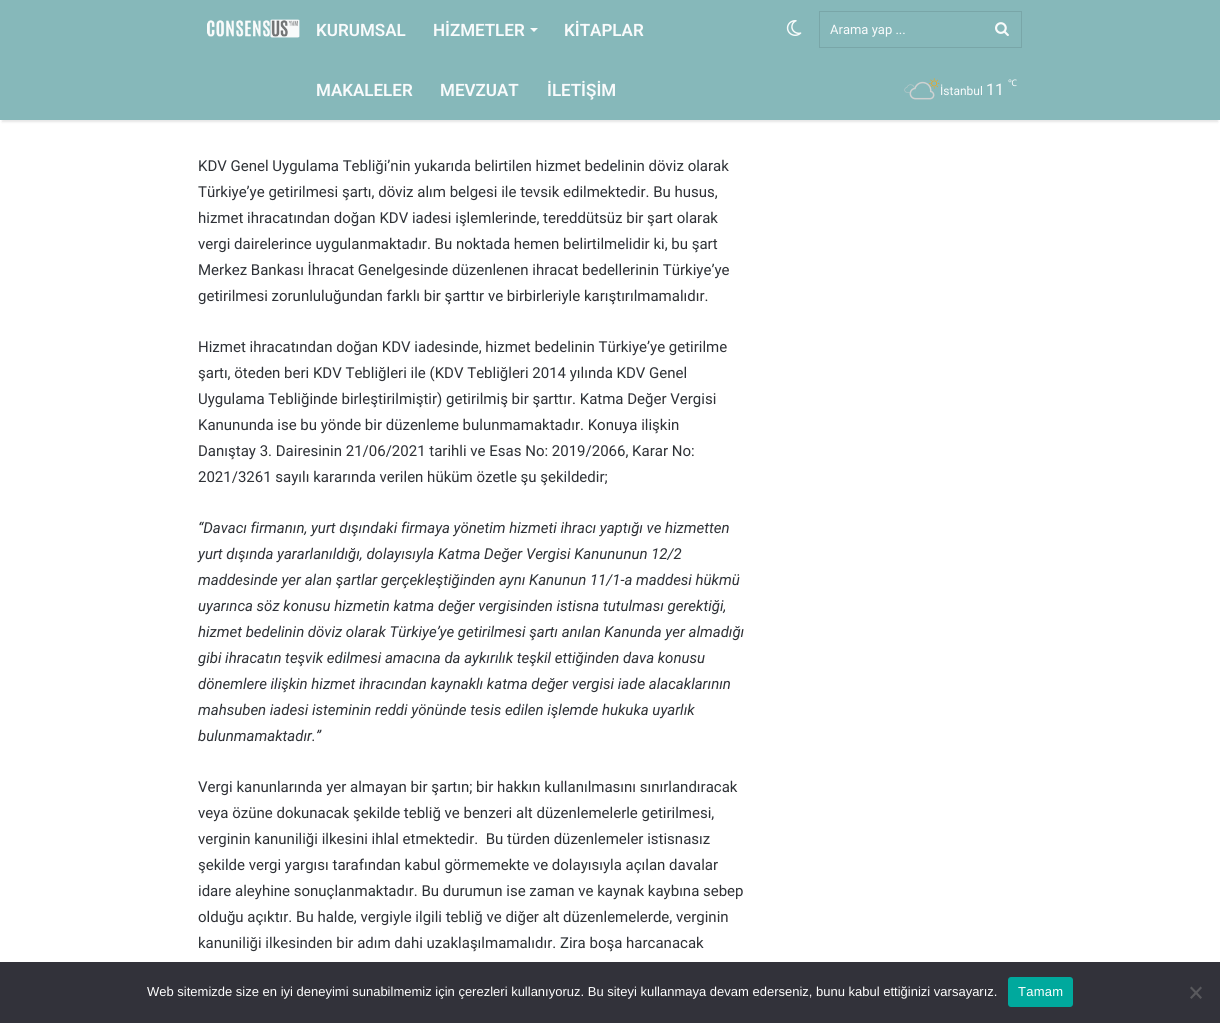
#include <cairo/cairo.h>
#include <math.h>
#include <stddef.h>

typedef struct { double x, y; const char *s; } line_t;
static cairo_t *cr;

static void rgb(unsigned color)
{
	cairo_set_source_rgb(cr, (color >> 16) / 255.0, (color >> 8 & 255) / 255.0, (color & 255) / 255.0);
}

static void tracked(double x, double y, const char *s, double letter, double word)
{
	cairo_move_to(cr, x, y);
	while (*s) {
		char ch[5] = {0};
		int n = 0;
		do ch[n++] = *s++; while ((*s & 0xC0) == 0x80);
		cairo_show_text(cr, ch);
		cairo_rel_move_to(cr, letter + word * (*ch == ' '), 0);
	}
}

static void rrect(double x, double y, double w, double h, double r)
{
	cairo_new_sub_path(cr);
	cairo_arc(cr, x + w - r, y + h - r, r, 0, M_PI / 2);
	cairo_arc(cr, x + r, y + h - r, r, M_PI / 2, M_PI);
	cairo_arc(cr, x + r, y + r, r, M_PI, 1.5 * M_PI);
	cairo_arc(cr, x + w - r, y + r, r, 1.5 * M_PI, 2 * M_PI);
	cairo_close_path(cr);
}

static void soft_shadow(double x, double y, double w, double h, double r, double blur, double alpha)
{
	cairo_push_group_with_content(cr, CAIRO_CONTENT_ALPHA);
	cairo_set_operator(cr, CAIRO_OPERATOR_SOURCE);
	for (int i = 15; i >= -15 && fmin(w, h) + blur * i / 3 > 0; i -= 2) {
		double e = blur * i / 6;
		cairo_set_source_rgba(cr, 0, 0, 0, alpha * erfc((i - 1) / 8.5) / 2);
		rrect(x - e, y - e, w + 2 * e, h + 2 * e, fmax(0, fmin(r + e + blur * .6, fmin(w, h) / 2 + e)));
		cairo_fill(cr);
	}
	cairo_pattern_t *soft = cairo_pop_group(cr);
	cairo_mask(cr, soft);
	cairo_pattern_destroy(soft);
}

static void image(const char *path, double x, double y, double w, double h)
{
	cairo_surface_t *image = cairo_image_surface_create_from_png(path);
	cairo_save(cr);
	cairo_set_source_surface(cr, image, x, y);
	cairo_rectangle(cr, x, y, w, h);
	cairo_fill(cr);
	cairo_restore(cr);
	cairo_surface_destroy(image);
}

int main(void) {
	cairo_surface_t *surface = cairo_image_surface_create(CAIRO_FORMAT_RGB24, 1220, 1023);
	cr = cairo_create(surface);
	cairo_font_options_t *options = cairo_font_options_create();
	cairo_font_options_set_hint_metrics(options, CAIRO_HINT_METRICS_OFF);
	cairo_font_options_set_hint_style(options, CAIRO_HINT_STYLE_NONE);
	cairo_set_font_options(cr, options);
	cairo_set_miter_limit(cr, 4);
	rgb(0xffffff);
	cairo_paint(cr);
	rgb(0x000000);
	soft_shadow(2, 6, 1216, 116, 0, 1, 0.1);
	rgb(0x86b8ba);
	cairo_rectangle(cr, 0, 0, 1220, 120);
	cairo_fill(cr);
	image("img/1.png", 207, 19, 93, 19);
	rgb(0xf9fbfc);
	cairo_new_path(cr);
	cairo_move_to(cr, 530, 28);
	cairo_line_to(cr, 538, 28);
	cairo_line_to(cr, 534, 32);
	cairo_close_path(cr);
	cairo_fill(cr);
	image("img/2.png", 786, 20, 16, 16);
	cairo_rectangle(cr, 819.5, 11.5, 202, 36);
	rgb(0x79a6a8);
	cairo_set_line_width(cr, 1);
	cairo_stroke(cr);
	image("img/3.png", 995, 22, 14, 14);
	image("img/4.png", 929, 78, 11, 11);
	image("img/6.png", 904, 84, 13, 9);
	image("img/7.png", 909, 86, 22, 7);
	image("img/5.png", 909, 81, 26, 19);
	rgb(0x32323a);
	cairo_rectangle(cr, 0, 962, 1220, 61);
	cairo_fill(cr);
	rgb(0x00a99d);
	rrect(1008, 977, 65, 30, 3);
	cairo_fill(cr);
	rgb(0x59595d);
	cairo_new_path(cr);
	cairo_move_to(cr, 1200.5, 986.5);
	cairo_line_to(cr, 1202, 988);
	cairo_line_to(cr, 1191.5, 999);
	cairo_line_to(cr, 1190, 997.5);
	cairo_close_path(cr);
	cairo_fill(cr);
	cairo_new_path(cr);
	cairo_move_to(cr, 1190, 988);
	cairo_line_to(cr, 1191.5, 986.5);
	cairo_line_to(cr, 1202, 997.5);
	cairo_line_to(cr, 1200.5, 999);
	cairo_close_path(cr);
	cairo_fill(cr);
	cairo_select_font_face(cr, "Roboto SemiBold", CAIRO_FONT_SLANT_NORMAL, CAIRO_FONT_WEIGHT_NORMAL);
	cairo_set_font_size(cr, 17);
	rgb(0xf9fbfc);
	{
		static const line_t items[] = {
			{316, 36, "KURUMSAL"},
			{433, 36, "HİZMETLER"},
			{564, 36, "KİTAPLAR"},
			{316, 96, "MAKALELER"},
			{440, 96, "MEVZUAT"},
			{547, 96, "İLETİŞİM"},
		};
		for (size_t i = 0; i < sizeof items / sizeof *items; i++) {
			cairo_move_to(cr, items[i].x, items[i].y);
			cairo_show_text(cr, items[i].s);
		}
	}
	cairo_select_font_face(cr, "Roboto", CAIRO_FONT_SLANT_NORMAL, CAIRO_FONT_WEIGHT_NORMAL);
	cairo_set_font_size(cr, 13);
	cairo_move_to(cr, 830, 34);
	cairo_show_text(cr, "Arama yap ...");
	cairo_set_font_size(cr, 12);
	cairo_move_to(cr, 940, 95);
	cairo_show_text(cr, "İstanbul");
	cairo_set_font_size(cr, 16);
	cairo_move_to(cr, 986, 95);
	cairo_show_text(cr, "11");
	cairo_select_font_face(cr, "Noto Sans", CAIRO_FONT_SLANT_NORMAL, CAIRO_FONT_WEIGHT_NORMAL);
	cairo_set_font_size(cr, 9);
	cairo_move_to(cr, 1008, 86);
	cairo_show_text(cr, "℃");
	cairo_select_font_face(cr, "Roboto", CAIRO_FONT_SLANT_NORMAL, CAIRO_FONT_WEIGHT_NORMAL);
	cairo_set_font_size(cr, 15);
	rgb(0x2e3136);
	{
		static const line_t items[] = {
			{198, 171, "KDV Genel Uygulama Tebliği’nin yukarıda belirtilen hizmet bedelinin döviz olarak"},
			{198, 197, "Türkiye’ye getirilmesi şartı, döviz alım belgesi ile tevsik edilmektedir. Bu husus,"},
			{198, 223, "hizmet ihracatından doğan KDV iadesi işlemlerinde, tereddütsüz bir şart olarak"},
			{198, 249, "vergi dairelerince uygulanmaktadır. Bu noktada hemen belirtilmelidir ki, bu şart"},
			{198, 275, "Merkez Bankası İhracat Genelgesinde düzenlenen ihracat bedellerinin Türkiye’ye"},
			{198, 301, "getirilmesi zorunluluğundan farklı bir şarttır ve birbirleriyle karıştırılmamalıdır."},
			{198, 352, "Hizmet ihracatından doğan KDV iadesinde, hizmet bedelinin Türkiye’ye getirilme"},
			{198, 378, "şartı, öteden beri KDV Tebliğleri ile (KDV Tebliğleri 2014 yılında KDV Genel"},
			{198, 404, "Uygulama Tebliğinde birleştirilmiştir) getirilmiş bir şarttır. Katma Değer Vergisi"},
			{198, 430, "Kanununda ise bu yönde bir düzenleme bulunmamaktadır. Konuya ilişkin"},
			{198, 456, "Danıştay 3. Dairesinin 21/06/2021 tarihli ve Esas No: 2019/2066, Karar No:"},
			{198, 482, "2021/3261 sayılı kararında verilen hüküm özetle şu şekildedir;"},
		};
		for (size_t i = 0; i < sizeof items / sizeof *items; i++) {
			cairo_move_to(cr, items[i].x, items[i].y);
			cairo_show_text(cr, items[i].s);
		}
	}
	cairo_select_font_face(cr, "Roboto", CAIRO_FONT_SLANT_ITALIC, CAIRO_FONT_WEIGHT_NORMAL);
	{
		static const line_t items[] = {
			{198, 533, "“Davacı firmanın, yurt dışındaki firmaya yönetim hizmeti ihracı yaptığı ve hizmetten"},
			{198, 559, "yurt dışında yararlanıldığı, dolayısıyla Katma Değer Vergisi Kanununun 12/2"},
			{198, 585, "maddesinde yer alan şartlar gerçekleştiğinden aynı Kanunun 11/1-a maddesi hükmü"},
			{198, 611, "uyarınca söz konusu hizmetin katma değer vergisinden istisna tutulması gerektiği,"},
			{198, 637, "hizmet bedelinin döviz olarak Türkiye’ye getirilmesi şartı anılan Kanunda yer almadığı"},
			{198, 663, "gibi ihracatın teşvik edilmesi amacına da aykırılık teşkil ettiğinden dava konusu"},
			{198, 689, "dönemlere ilişkin hizmet ihracından kaynaklı katma değer vergisi iade alacaklarının"},
			{198, 715, "mahsuben iadesi isteminin reddi yönünde tesis edilen işlemde hukuka uyarlık"},
			{198, 741, "bulunmamaktadır.”"},
		};
		for (size_t i = 0; i < sizeof items / sizeof *items; i++) {
			cairo_move_to(cr, items[i].x, items[i].y);
			cairo_show_text(cr, items[i].s);
		}
	}
	cairo_select_font_face(cr, "Roboto", CAIRO_FONT_SLANT_NORMAL, CAIRO_FONT_WEIGHT_NORMAL);
	{
		static const line_t items[] = {
			{198, 792, "Vergi kanunlarında yer almayan bir şartın; bir hakkın kullanılmasını sınırlandıracak"},
			{198, 818, "veya özüne dokunacak şekilde tebliğ ve benzeri alt düzenlemelerle getirilmesi,"},
			{198, 844, "verginin kanuniliği ilkesini ihlal etmektedir.  Bu türden düzenlemeler istisnasız"},
			{198, 870, "şekilde vergi yargısı tarafından kabul görmemekte ve dolayısıyla açılan davalar"},
			{198, 896, "idare aleyhine sonuçlanmaktadır. Bu durumun ise zaman ve kaynak kaybına sebep"},
			{198, 922, "olduğu açıktır. Bu halde, vergiyle ilgili tebliğ ve diğer alt düzenlemelerde, verginin"},
			{198, 948, "kanuniliği ilkesinden bir adım dahi uzaklaşılmamalıdır. Zira boşa harcanacak"},
		};
		for (size_t i = 0; i < sizeof items / sizeof *items; i++) {
			cairo_move_to(cr, items[i].x, items[i].y);
			cairo_show_text(cr, items[i].s);
		}
	}
	cairo_select_font_face(cr, "Liberation Sans", CAIRO_FONT_SLANT_NORMAL, CAIRO_FONT_WEIGHT_NORMAL);
	cairo_set_font_size(cr, 13);
	rgb(0xffffff);
	cairo_move_to(cr, 147, 996);
	cairo_show_text(cr, "Web sitemizde size en iyi deneyimi sunabilmemiz için çerezleri kullanıyoruz. Bu siteyi kullanmaya devam ederseniz, bunu kabul ettiğinizi varsayarız.");
	tracked(1018, 996, "Tamam", 0.25, 0);
	cairo_surface_write_to_png(surface, "page.png");
	cairo_font_options_destroy(options);
	cairo_destroy(cr);
	cairo_surface_destroy(surface);
	return 0;
}
